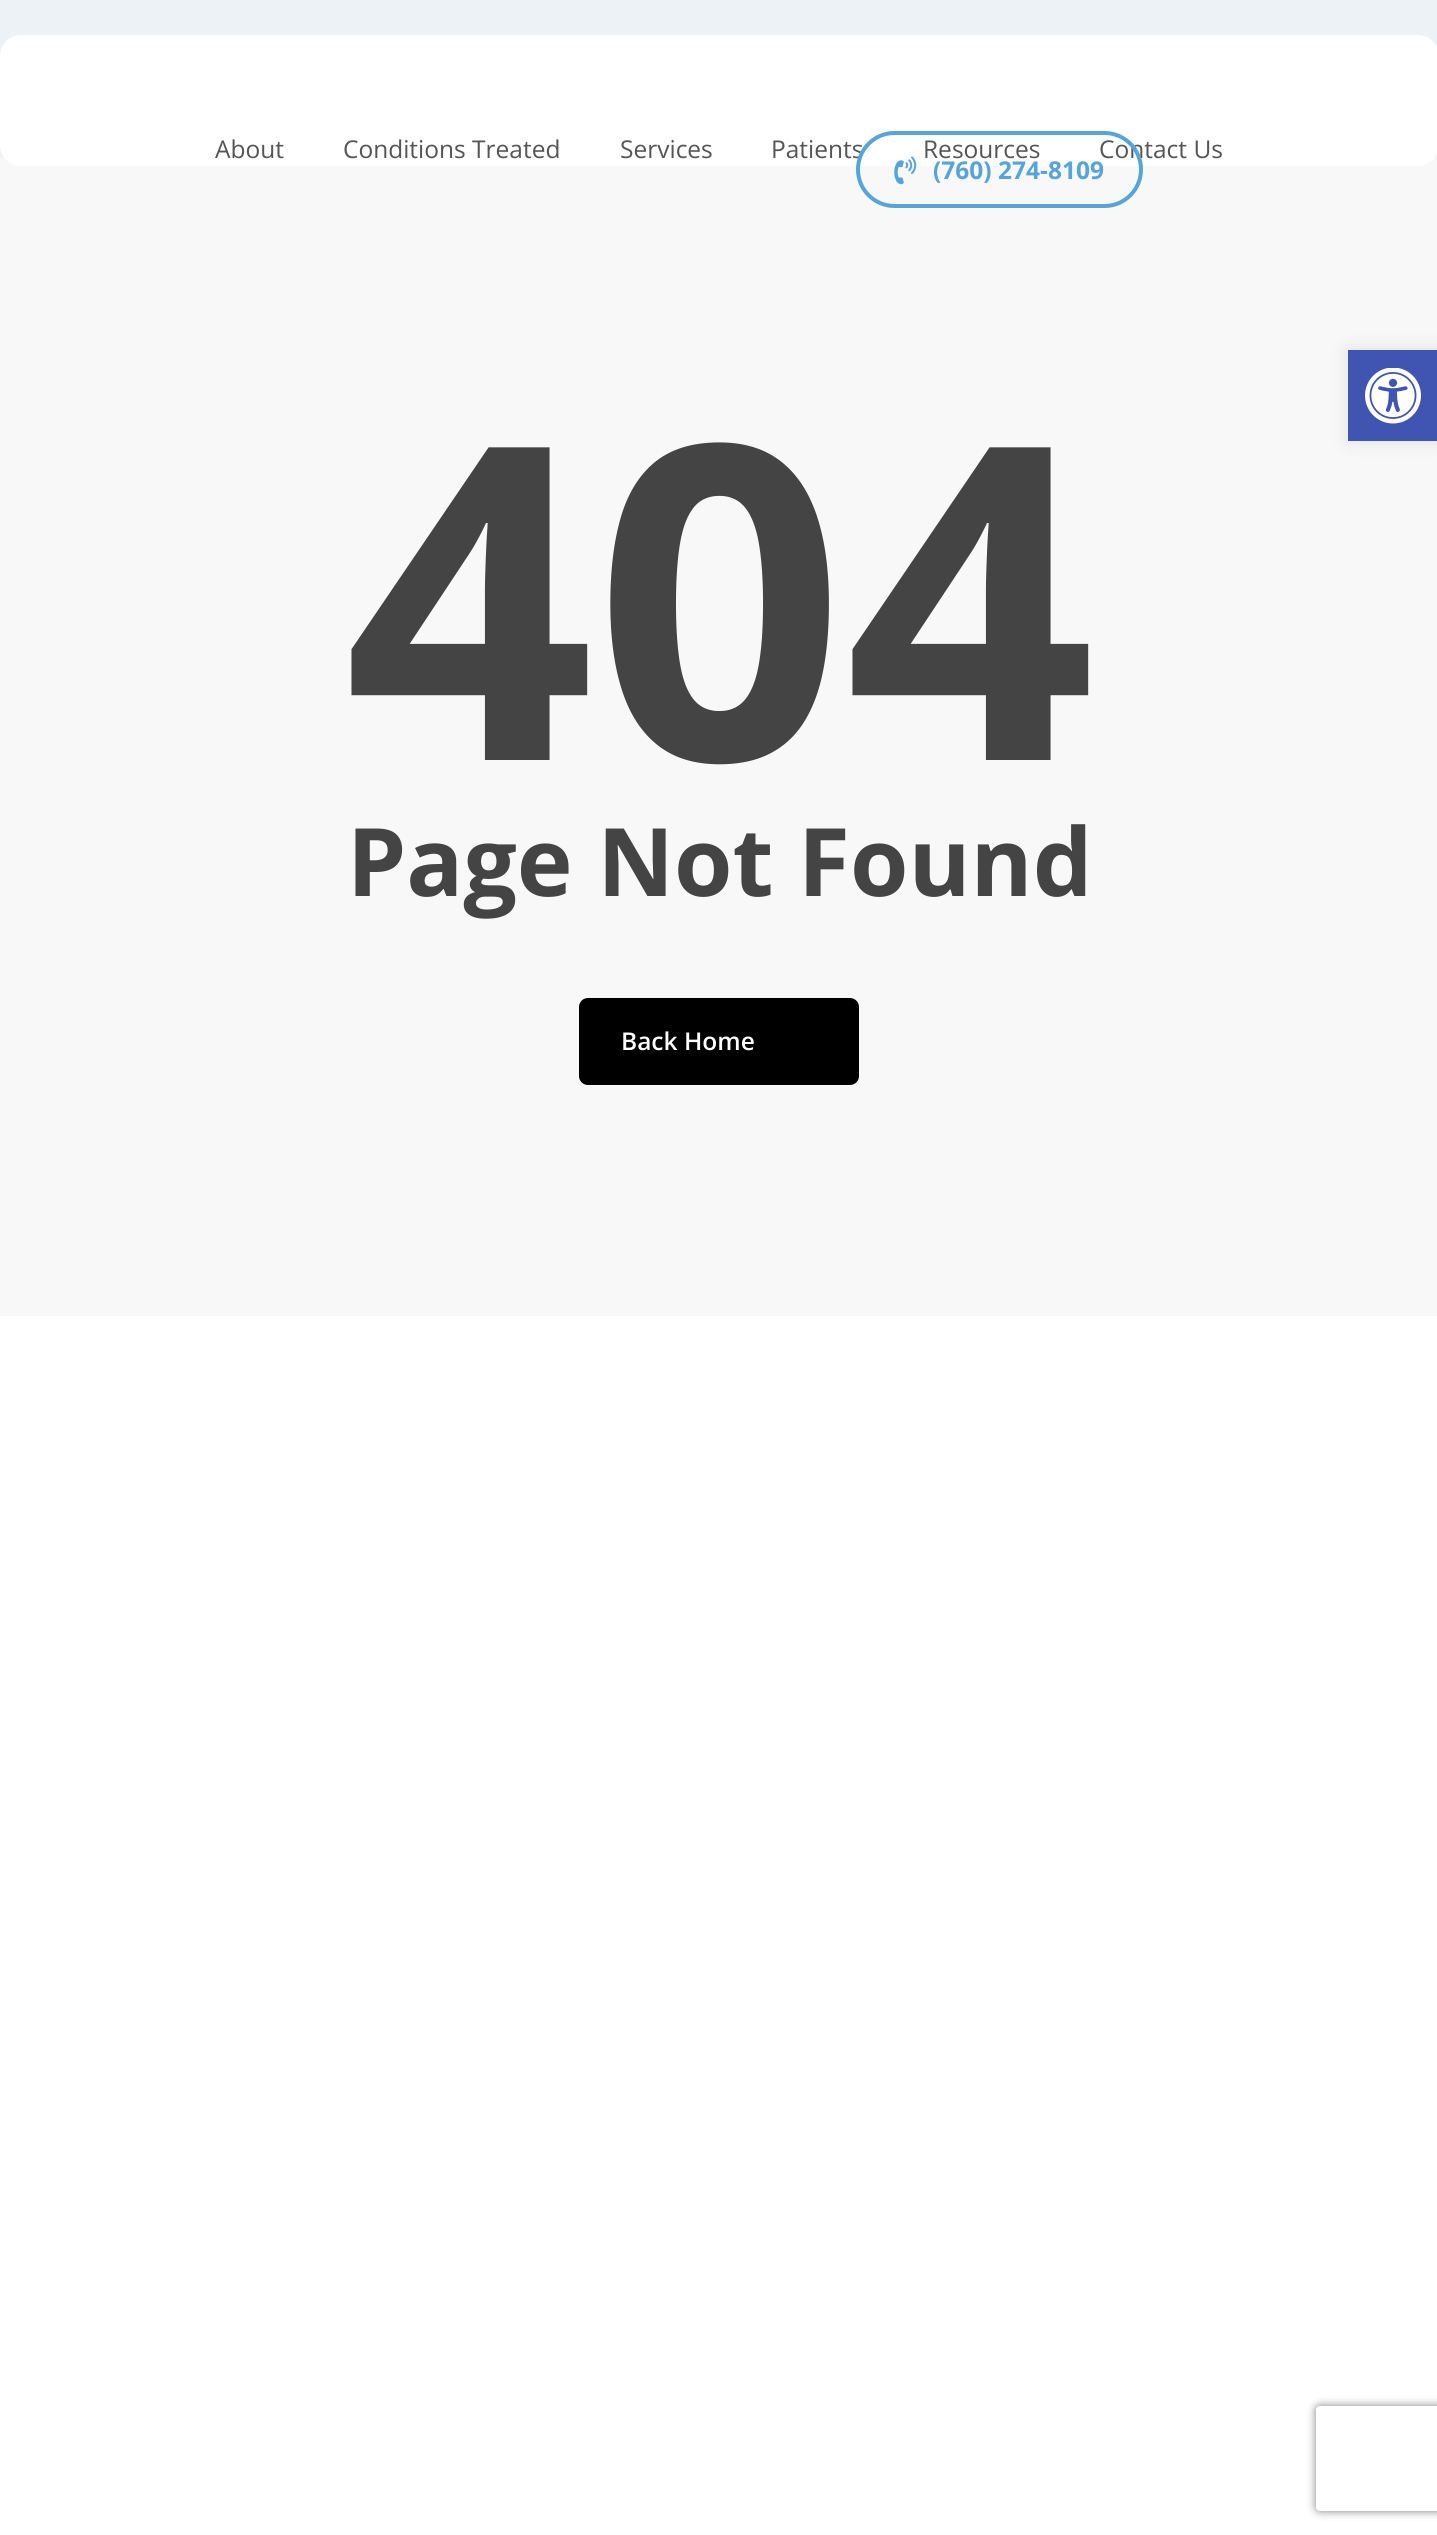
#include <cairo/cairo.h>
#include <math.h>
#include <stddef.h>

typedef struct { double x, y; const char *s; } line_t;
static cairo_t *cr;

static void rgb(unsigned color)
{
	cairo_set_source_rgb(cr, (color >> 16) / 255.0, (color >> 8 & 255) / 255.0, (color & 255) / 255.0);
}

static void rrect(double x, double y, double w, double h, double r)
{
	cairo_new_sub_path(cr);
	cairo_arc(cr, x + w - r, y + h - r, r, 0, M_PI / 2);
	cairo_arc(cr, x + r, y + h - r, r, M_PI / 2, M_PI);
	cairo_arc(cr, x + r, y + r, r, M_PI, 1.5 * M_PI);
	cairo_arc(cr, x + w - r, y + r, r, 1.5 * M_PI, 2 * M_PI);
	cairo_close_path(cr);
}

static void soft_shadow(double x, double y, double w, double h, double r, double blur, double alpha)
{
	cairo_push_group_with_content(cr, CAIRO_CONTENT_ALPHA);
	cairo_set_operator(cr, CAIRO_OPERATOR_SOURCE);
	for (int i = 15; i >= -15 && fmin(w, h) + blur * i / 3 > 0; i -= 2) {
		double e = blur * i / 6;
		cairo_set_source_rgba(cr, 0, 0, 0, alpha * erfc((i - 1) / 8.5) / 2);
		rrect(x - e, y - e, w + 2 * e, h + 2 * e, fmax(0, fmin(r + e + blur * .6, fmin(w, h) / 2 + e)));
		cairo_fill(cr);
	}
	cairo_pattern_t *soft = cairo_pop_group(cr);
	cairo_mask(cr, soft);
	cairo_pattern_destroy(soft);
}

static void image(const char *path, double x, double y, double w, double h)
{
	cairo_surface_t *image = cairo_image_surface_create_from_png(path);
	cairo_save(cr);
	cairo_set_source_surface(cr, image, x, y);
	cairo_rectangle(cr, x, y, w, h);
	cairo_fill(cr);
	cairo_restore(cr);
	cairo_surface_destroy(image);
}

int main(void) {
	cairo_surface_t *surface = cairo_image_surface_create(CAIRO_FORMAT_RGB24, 1437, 2535);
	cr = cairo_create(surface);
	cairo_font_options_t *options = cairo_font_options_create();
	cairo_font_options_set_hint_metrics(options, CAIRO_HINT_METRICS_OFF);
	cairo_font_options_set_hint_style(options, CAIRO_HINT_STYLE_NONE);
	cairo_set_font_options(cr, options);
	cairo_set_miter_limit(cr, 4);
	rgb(0xffffff);
	cairo_paint(cr);
	rgb(0xecf2f6);
	cairo_rectangle(cr, 0, 0, 1437, 158);
	cairo_fill(cr);
	rgb(0xf8f8f8);
	cairo_rectangle(cr, 0, 158, 1437, 1158);
	cairo_fill(cr);
	rgb(0xffffff);
	rrect(0, 35, 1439, 131, 21);
	cairo_fill(cr);
	rgb(0x000000);
	rrect(579, 998, 280, 87, 9);
	cairo_fill(cr);
	cairo_set_source_rgba(cr, 0, 0, 0, 0.1);
	cairo_new_path(cr);
	cairo_move_to(cr, 579, 1071);
	cairo_line_to(cr, 579, 1076);
	cairo_curve_to(cr, 579, 1081, 583, 1085, 588, 1085);
	cairo_line_to(cr, 850, 1085);
	cairo_curve_to(cr, 855, 1085, 859, 1081, 859, 1076);
	cairo_line_to(cr, 859, 1071);
	cairo_curve_to(cr, 859, 1076, 855, 1080, 850, 1080);
	cairo_line_to(cr, 588, 1080);
	cairo_curve_to(cr, 583, 1080, 579, 1076, 579, 1071);
	cairo_close_path(cr);
	cairo_fill(cr);
	rgb(0x000000);
	soft_shadow(1348, 350, 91, 91, 0, 9, 0.1);
	rgb(0x4054b2);
	cairo_rectangle(cr, 1348, 350, 89, 91);
	cairo_fill(cr);
	image("img/2.png", 1365, 368, 56, 56);
	cairo_save(cr);
	cairo_set_fill_rule(cr, CAIRO_FILL_RULE_EVEN_ODD);
	cairo_new_path(cr);
	cairo_move_to(cr, 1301, 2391);
	cairo_line_to(cr, 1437, 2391);
	cairo_line_to(cr, 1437, 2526);
	cairo_line_to(cr, 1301, 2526);
	cairo_close_path(cr);
	cairo_move_to(cr, 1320, 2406);
	cairo_line_to(cr, 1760, 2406);
	cairo_curve_to(cr, 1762, 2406, 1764, 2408, 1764, 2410);
	cairo_line_to(cr, 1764, 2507);
	cairo_curve_to(cr, 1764, 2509, 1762, 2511, 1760, 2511);
	cairo_line_to(cr, 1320, 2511);
	cairo_curve_to(cr, 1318, 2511, 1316, 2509, 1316, 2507);
	cairo_line_to(cr, 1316, 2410);
	cairo_curve_to(cr, 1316, 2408, 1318, 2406, 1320, 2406);
	cairo_close_path(cr);
	cairo_clip(cr);
	rgb(0x808080);
	soft_shadow(1316, 2406, 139, 105, 4, 4.5, 1);
	cairo_restore(cr);
	cairo_select_font_face(cr, "Open Sans", CAIRO_FONT_SLANT_NORMAL, CAIRO_FONT_WEIGHT_NORMAL);
	cairo_set_font_size(cr, 24.5);
	rgb(0x555555);
	{
		static const line_t items[] = {
			{215, 158, "About"},
			{343, 158, "Conditions Treated"},
			{620, 158, "Services"},
			{771, 158, "Patients"},
			{923, 158, "Resources"},
			{1099, 158, "Contact Us"},
		};
		for (size_t i = 0; i < sizeof items / sizeof *items; i++) {
			cairo_move_to(cr, items[i].x, items[i].y);
			cairo_show_text(cr, items[i].s);
		}
	}
	rrect(858, 133, 283, 73, 36.5);
	rgb(0x55a4db);
	cairo_set_line_width(cr, 4);
	cairo_stroke(cr);
	image("img/1.png", 894, 156, 23, 29);
	cairo_select_font_face(cr, "Open Sans", CAIRO_FONT_SLANT_NORMAL, CAIRO_FONT_WEIGHT_BOLD);
	cairo_move_to(cr, 933, 179);
	cairo_show_text(cr, "(760) 274-8109");
	cairo_set_font_size(cr, 438);
	rgb(0x444444);
	cairo_move_to(cr, 344, 760);
	cairo_show_text(cr, "404");
	cairo_set_font_size(cr, 94.5);
	cairo_move_to(cr, 347, 896);
	cairo_show_text(cr, "Page Not Found");
	cairo_select_font_face(cr, "Open Sans SemiBold", CAIRO_FONT_SLANT_NORMAL, CAIRO_FONT_WEIGHT_NORMAL);
	cairo_set_font_size(cr, 24.5);
	rgb(0xffffff);
	cairo_move_to(cr, 621, 1050);
	cairo_show_text(cr, "Back Home");
	cairo_surface_write_to_png(surface, "page.png");
	cairo_font_options_destroy(options);
	cairo_destroy(cr);
	cairo_surface_destroy(surface);
	return 0;
}
